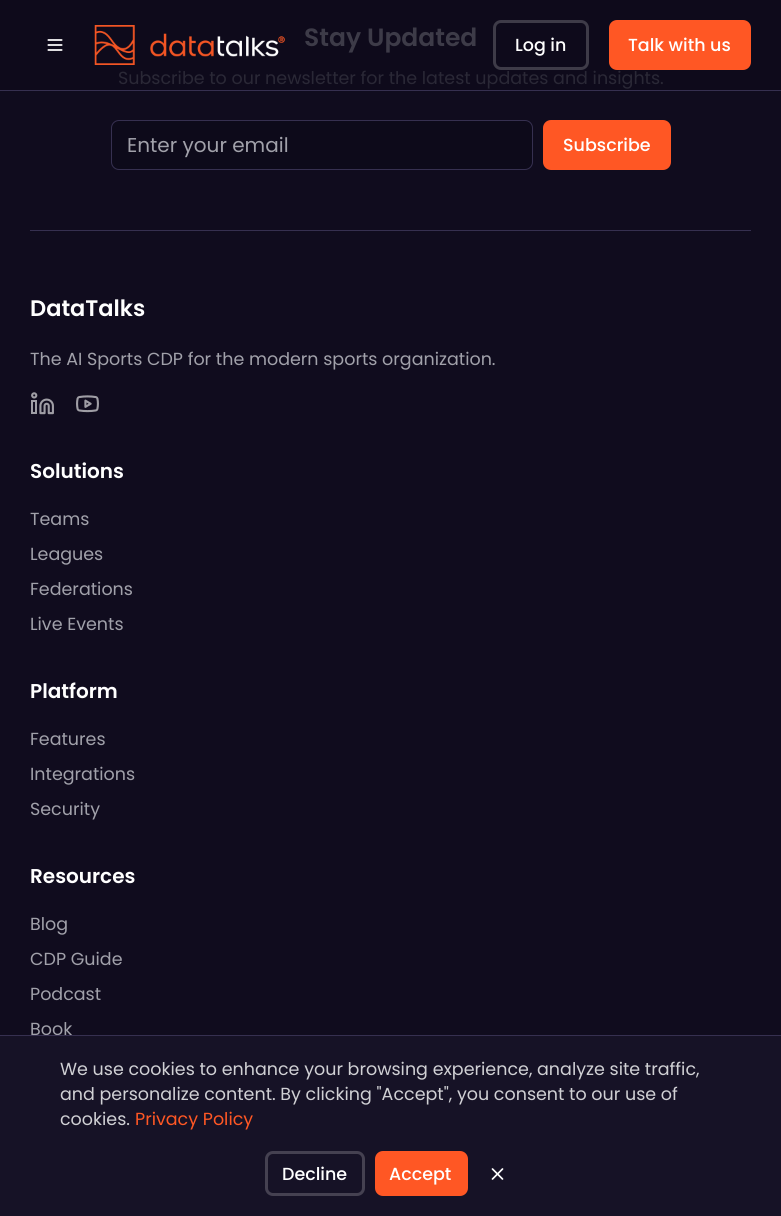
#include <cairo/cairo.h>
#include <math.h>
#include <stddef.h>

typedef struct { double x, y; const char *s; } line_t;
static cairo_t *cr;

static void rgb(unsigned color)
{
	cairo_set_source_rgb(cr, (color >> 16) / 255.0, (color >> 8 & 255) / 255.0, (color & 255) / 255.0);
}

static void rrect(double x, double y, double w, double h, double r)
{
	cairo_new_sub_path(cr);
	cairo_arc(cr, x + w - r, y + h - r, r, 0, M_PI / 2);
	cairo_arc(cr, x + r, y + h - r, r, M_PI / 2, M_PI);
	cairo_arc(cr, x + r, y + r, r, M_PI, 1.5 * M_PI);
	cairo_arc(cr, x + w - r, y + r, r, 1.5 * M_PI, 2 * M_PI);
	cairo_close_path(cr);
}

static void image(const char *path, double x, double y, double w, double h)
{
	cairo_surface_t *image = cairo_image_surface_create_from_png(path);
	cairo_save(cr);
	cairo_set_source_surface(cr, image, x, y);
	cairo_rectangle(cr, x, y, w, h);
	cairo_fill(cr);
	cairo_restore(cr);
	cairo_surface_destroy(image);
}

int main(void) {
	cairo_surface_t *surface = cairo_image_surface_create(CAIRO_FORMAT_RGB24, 781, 1216);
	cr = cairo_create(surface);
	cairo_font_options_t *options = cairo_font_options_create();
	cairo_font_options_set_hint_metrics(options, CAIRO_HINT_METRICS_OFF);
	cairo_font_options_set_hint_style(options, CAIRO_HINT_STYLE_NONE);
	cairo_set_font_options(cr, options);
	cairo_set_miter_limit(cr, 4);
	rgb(0x100c1e);
	cairo_paint(cr);
	rgb(0x0e0a1b);
	cairo_rectangle(cr, 0, 0, 781, 90);
	cairo_fill(cr);
	rgb(0x363050);
	cairo_rectangle(cr, 30, 230, 721, 1);
	cairo_fill(cr);
	rgb(0x0d0a1a);
	rrect(111.5, 120.5, 421, 49, 7.5);
	cairo_fill_preserve(cr);
	rgb(0x363050);
	cairo_set_line_width(cr, 1);
	cairo_stroke(cr);
	rgb(0xff5724);
	rrect(543, 120, 128, 50, 8);
	cairo_fill(cr);
	image("img/1.png", 31, 392, 23, 23);
	image("img/2.png", 76, 395, 23, 18);
	rgb(0x363050);
	cairo_rectangle(cr, 0, 90, 781, 1);
	cairo_fill(cr);
	image("img/3.png", 47, 39, 16, 12);
	image("img/4.png", 94, 25, 191, 40);
	rrect(494.5, 21.5, 93, 47, 6.5);
	rgb(0x3e3b48);
	cairo_set_line_width(cr, 3);
	cairo_stroke(cr);
	rgb(0xff5724);
	rrect(609, 20, 142, 50, 8);
	cairo_fill(cr);
	rgb(0x161226);
	cairo_rectangle(cr, 0, 1036, 781, 180);
	cairo_fill(cr);
	rrect(266.5, 1152.5, 97, 42, 6.5);
	rgb(0x454151);
	cairo_stroke(cr);
	rgb(0xff5724);
	rrect(375, 1151, 93, 45, 8);
	cairo_fill(cr);
	cairo_new_path(cr);
	cairo_move_to(cr, 502.5, 1169);
	cairo_line_to(cr, 492.5, 1179);
	cairo_move_to(cr, 492.5, 1169);
	cairo_line_to(cr, 502.5, 1179);
	rgb(0xffffff);
	cairo_set_line_width(cr, 1.7);
	cairo_set_line_cap(cr, CAIRO_LINE_CAP_ROUND);
	cairo_set_line_join(cr, CAIRO_LINE_JOIN_ROUND);
	cairo_stroke(cr);
	cairo_select_font_face(cr, "Poppins SemiBold", CAIRO_FONT_SLANT_NORMAL, CAIRO_FONT_WEIGHT_NORMAL);
	cairo_set_font_size(cr, 25);
	rgb(0x3d3b48);
	cairo_move_to(cr, 304, 46);
	cairo_show_text(cr, "Stay Updated");
	cairo_select_font_face(cr, "Poppins", CAIRO_FONT_SLANT_NORMAL, CAIRO_FONT_WEIGHT_NORMAL);
	cairo_set_font_size(cr, 17.5);
	rgb(0x2a2836);
	cairo_move_to(cr, 118, 84);
	cairo_show_text(cr, "Subscribe to our newsletter for the latest updates and insights.");
	cairo_set_font_size(cr, 20);
	rgb(0xa1a1aa);
	cairo_move_to(cr, 127, 152);
	cairo_show_text(cr, "Enter your email");
	cairo_select_font_face(cr, "Poppins Medium", CAIRO_FONT_SLANT_NORMAL, CAIRO_FONT_WEIGHT_NORMAL);
	cairo_set_font_size(cr, 17.5);
	rgb(0xffffff);
	cairo_move_to(cr, 563, 151);
	cairo_show_text(cr, "Subscribe");
	cairo_select_font_face(cr, "Poppins SemiBold", CAIRO_FONT_SLANT_NORMAL, CAIRO_FONT_WEIGHT_NORMAL);
	cairo_set_font_size(cr, 22.5);
	cairo_move_to(cr, 30, 316);
	cairo_show_text(cr, "DataTalks");
	cairo_select_font_face(cr, "Poppins", CAIRO_FONT_SLANT_NORMAL, CAIRO_FONT_WEIGHT_NORMAL);
	cairo_set_font_size(cr, 17.5);
	rgb(0xa1a1aa);
	cairo_move_to(cr, 30, 365);
	cairo_show_text(cr, "The AI Sports CDP for the modern sports organization.");
	cairo_select_font_face(cr, "Poppins SemiBold", CAIRO_FONT_SLANT_NORMAL, CAIRO_FONT_WEIGHT_NORMAL);
	cairo_set_font_size(cr, 20);
	rgb(0xffffff);
	cairo_move_to(cr, 30, 478);
	cairo_show_text(cr, "Solutions");
	cairo_select_font_face(cr, "Poppins", CAIRO_FONT_SLANT_NORMAL, CAIRO_FONT_WEIGHT_NORMAL);
	cairo_set_font_size(cr, 17.5);
	rgb(0xa1a1aa);
	{
		static const line_t items[] = {
			{30, 525, "Teams"},
			{30, 560, "Leagues"},
			{30, 595, "Federations"},
			{30, 630, "Live Events"},
		};
		for (size_t i = 0; i < sizeof items / sizeof *items; i++) {
			cairo_move_to(cr, items[i].x, items[i].y);
			cairo_show_text(cr, items[i].s);
		}
	}
	cairo_select_font_face(cr, "Poppins SemiBold", CAIRO_FONT_SLANT_NORMAL, CAIRO_FONT_WEIGHT_NORMAL);
	cairo_set_font_size(cr, 20);
	rgb(0xffffff);
	cairo_move_to(cr, 30, 698);
	cairo_show_text(cr, "Platform");
	cairo_select_font_face(cr, "Poppins", CAIRO_FONT_SLANT_NORMAL, CAIRO_FONT_WEIGHT_NORMAL);
	cairo_set_font_size(cr, 17.5);
	rgb(0xa1a1aa);
	{
		static const line_t items[] = {
			{30, 745, "Features"},
			{30, 780, "Integrations"},
			{30, 815, "Security"},
		};
		for (size_t i = 0; i < sizeof items / sizeof *items; i++) {
			cairo_move_to(cr, items[i].x, items[i].y);
			cairo_show_text(cr, items[i].s);
		}
	}
	cairo_select_font_face(cr, "Poppins SemiBold", CAIRO_FONT_SLANT_NORMAL, CAIRO_FONT_WEIGHT_NORMAL);
	cairo_set_font_size(cr, 20);
	rgb(0xffffff);
	cairo_move_to(cr, 30, 883);
	cairo_show_text(cr, "Resources");
	cairo_select_font_face(cr, "Poppins", CAIRO_FONT_SLANT_NORMAL, CAIRO_FONT_WEIGHT_NORMAL);
	cairo_set_font_size(cr, 17.5);
	rgb(0xa1a1aa);
	{
		static const line_t items[] = {
			{30, 930, "Blog"},
			{30, 965, "CDP Guide"},
			{30, 1000, "Podcast"},
			{30, 1035, "Book"},
		};
		for (size_t i = 0; i < sizeof items / sizeof *items; i++) {
			cairo_move_to(cr, items[i].x, items[i].y);
			cairo_show_text(cr, items[i].s);
		}
	}
	cairo_select_font_face(cr, "Poppins Medium", CAIRO_FONT_SLANT_NORMAL, CAIRO_FONT_WEIGHT_NORMAL);
	rgb(0xffffff);
	cairo_move_to(cr, 515, 51);
	cairo_show_text(cr, "Log in");
	cairo_move_to(cr, 628, 51);
	cairo_show_text(cr, "Talk with us");
	rgb(0x363050);
	cairo_rectangle(cr, 0, 1035, 781, 1);
	cairo_fill(cr);
	cairo_select_font_face(cr, "Poppins", CAIRO_FONT_SLANT_NORMAL, CAIRO_FONT_WEIGHT_NORMAL);
	rgb(0xd0d0d4);
	{
		static const line_t items[] = {
			{60, 1075, "We use cookies to enhance your browsing experience, analyze site traffic,"},
			{60, 1100, "and personalize content. By clicking \"Accept\", you consent to our use of"},
			{60, 1125, "cookies."},
		};
		for (size_t i = 0; i < sizeof items / sizeof *items; i++) {
			cairo_move_to(cr, items[i].x, items[i].y);
			cairo_show_text(cr, items[i].s);
		}
	}
	rgb(0xff5724);
	cairo_move_to(cr, 135, 1125);
	cairo_show_text(cr, "Privacy Policy");
	cairo_select_font_face(cr, "Poppins Medium", CAIRO_FONT_SLANT_NORMAL, CAIRO_FONT_WEIGHT_NORMAL);
	rgb(0xffffff);
	cairo_move_to(cr, 282, 1180);
	cairo_show_text(cr, "Decline");
	cairo_move_to(cr, 389, 1180);
	cairo_show_text(cr, "Accept");
	cairo_surface_write_to_png(surface, "page.png");
	cairo_font_options_destroy(options);
	cairo_destroy(cr);
	cairo_surface_destroy(surface);
	return 0;
}
